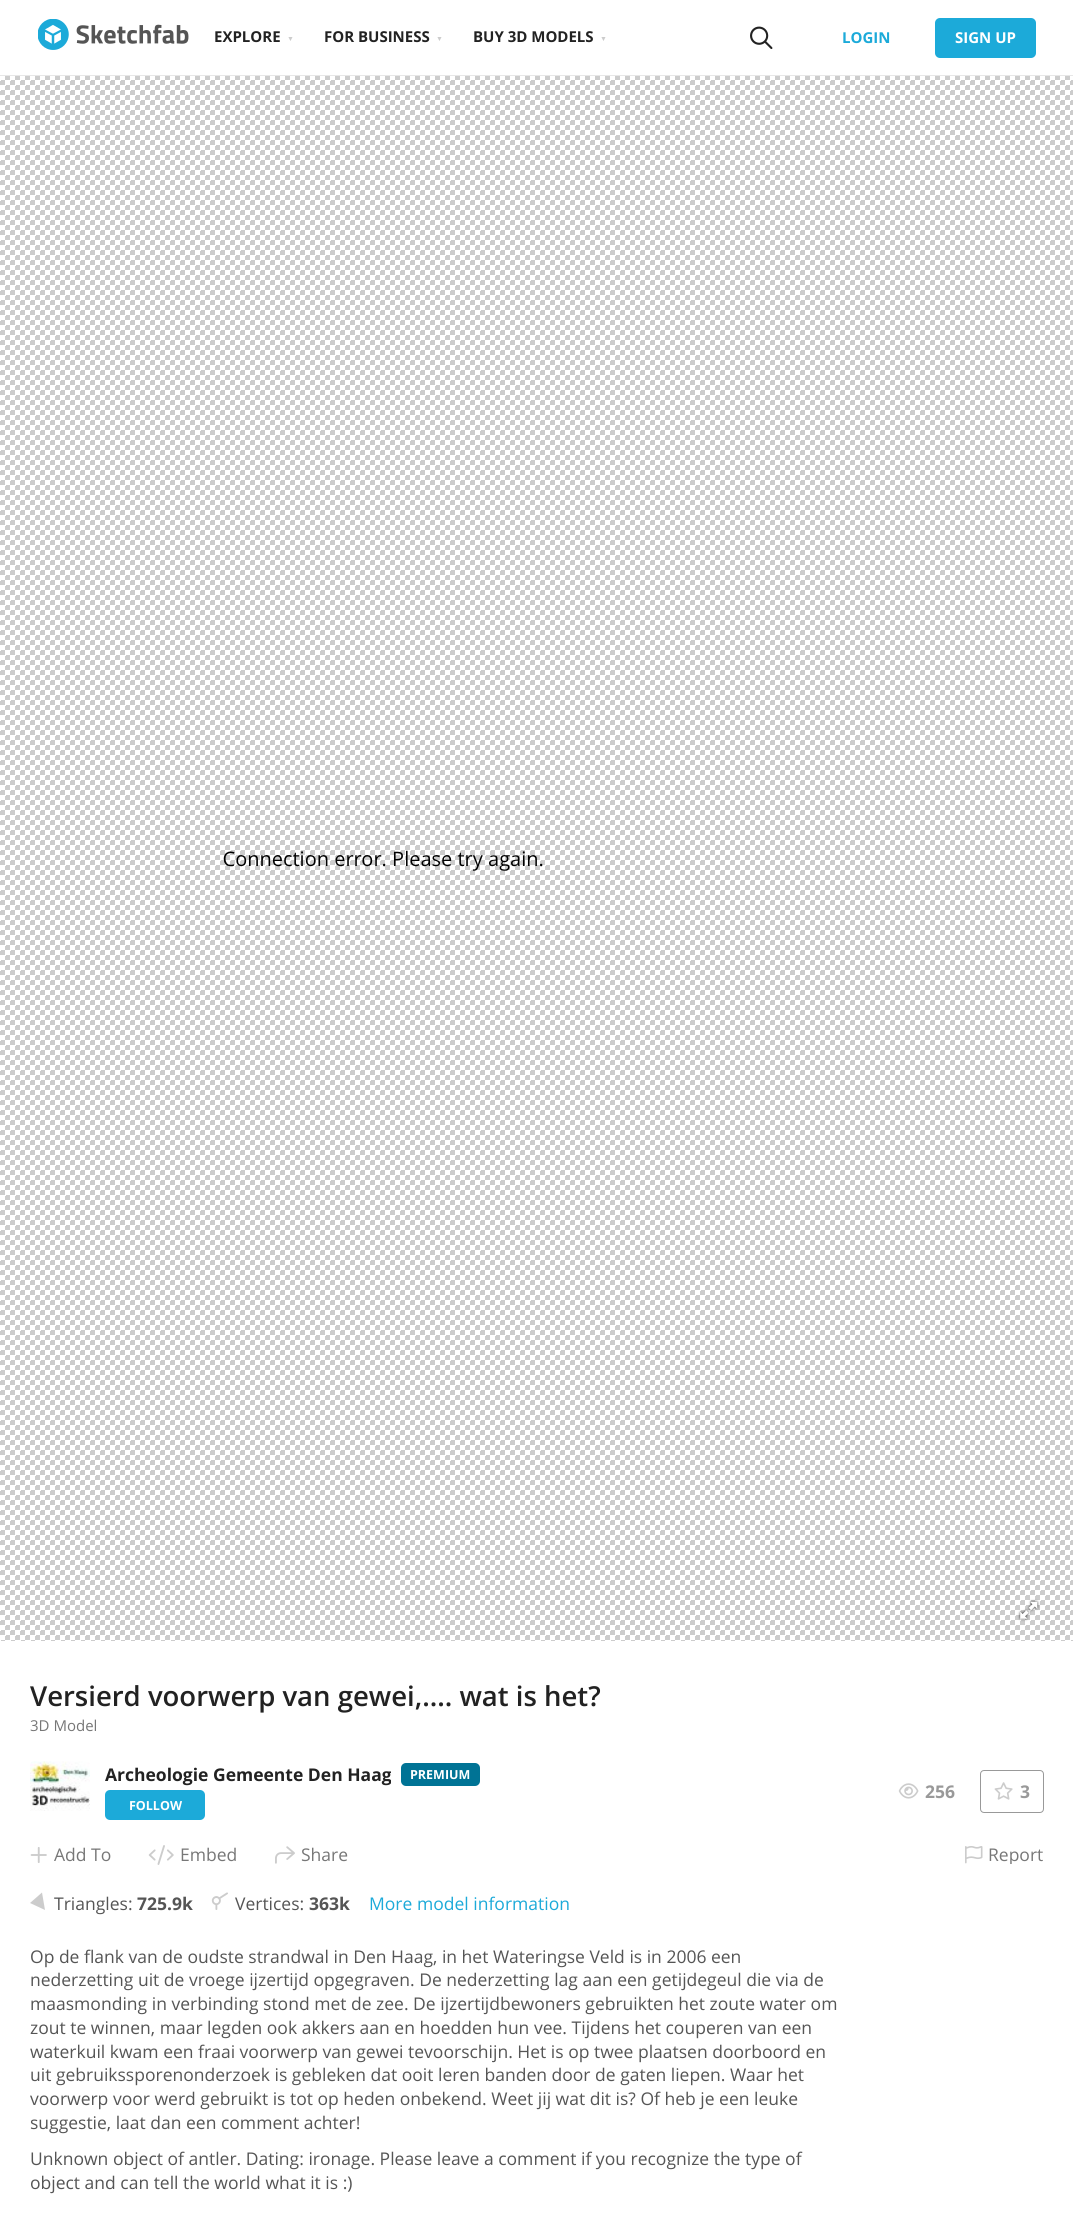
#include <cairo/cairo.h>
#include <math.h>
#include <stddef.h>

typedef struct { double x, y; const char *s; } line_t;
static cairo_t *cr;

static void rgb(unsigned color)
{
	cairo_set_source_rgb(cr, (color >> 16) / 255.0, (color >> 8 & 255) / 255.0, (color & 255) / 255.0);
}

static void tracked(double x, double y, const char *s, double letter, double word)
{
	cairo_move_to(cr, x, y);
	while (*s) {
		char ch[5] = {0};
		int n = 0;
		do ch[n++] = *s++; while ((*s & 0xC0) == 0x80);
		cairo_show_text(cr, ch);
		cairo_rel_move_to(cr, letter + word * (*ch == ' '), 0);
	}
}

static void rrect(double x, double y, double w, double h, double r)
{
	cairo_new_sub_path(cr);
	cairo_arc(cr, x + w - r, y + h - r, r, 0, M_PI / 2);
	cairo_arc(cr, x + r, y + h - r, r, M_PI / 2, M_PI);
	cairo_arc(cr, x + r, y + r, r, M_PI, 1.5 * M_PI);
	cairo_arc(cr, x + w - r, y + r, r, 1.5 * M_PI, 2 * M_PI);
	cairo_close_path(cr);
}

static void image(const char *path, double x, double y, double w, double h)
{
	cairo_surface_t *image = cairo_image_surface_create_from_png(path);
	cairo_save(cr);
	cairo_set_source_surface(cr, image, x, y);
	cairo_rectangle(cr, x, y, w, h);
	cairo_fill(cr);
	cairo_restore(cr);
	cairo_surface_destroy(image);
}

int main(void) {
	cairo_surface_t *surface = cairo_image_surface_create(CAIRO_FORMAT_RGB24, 1073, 2237);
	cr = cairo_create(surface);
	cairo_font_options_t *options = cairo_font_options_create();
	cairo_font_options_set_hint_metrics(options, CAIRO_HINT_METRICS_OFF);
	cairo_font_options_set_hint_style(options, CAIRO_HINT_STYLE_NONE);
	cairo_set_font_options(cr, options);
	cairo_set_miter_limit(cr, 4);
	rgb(0xffffff);
	cairo_paint(cr);
	rgb(0xe7e7e7);
	cairo_rectangle(cr, 0, 75, 1073, 1);
	cairo_fill(cr);
	image("img/1.png", 38, 19, 151, 31);
	image("img/2.png", 750, 26, 23, 23);
	rgb(0x1caad9);
	rrect(935, 18, 101, 40, 5);
	cairo_fill(cr);
	image("img/3.png", 0, 76, 1073, 1565);
	image("img/4.png", 30, 1761, 60, 50);
	rgb(0x007395);
	rrect(401, 1763, 79, 23, 5);
	cairo_fill(cr);
	rgb(0x1caad9);
	rrect(105, 1790, 100, 30, 5);
	cairo_fill(cr);
	image("img/5.png", 898, 1783, 21, 16);
	rrect(980.5, 1770.5, 63, 42, 3.5);
	rgb(0x999999);
	cairo_set_line_width(cr, 1);
	cairo_stroke(cr);
	image("img/6.png", 994, 1782, 19, 18);
	image("img/7.png", 30, 1847, 17, 16);
	image("img/8.png", 148, 1845, 26, 20);
	image("img/9.png", 275, 1846, 20, 18);
	image("img/10.png", 965, 1846, 18, 18);
	rgb(0xcccccc);
	cairo_new_path(cr);
	cairo_move_to(cr, 30, 1903);
	cairo_line_to(cr, 45, 1910);
	cairo_line_to(cr, 42, 1892.5);
	cairo_close_path(cr);
	cairo_fill(cr);
	image("img/11.png", 211, 1892, 17, 18);
	cairo_select_font_face(cr, "Open Sans", CAIRO_FONT_SLANT_NORMAL, CAIRO_FONT_WEIGHT_BOLD);
	cairo_set_font_size(cr, 15);
	rgb(0x222222);
	cairo_move_to(cr, 214, 42);
	cairo_show_text(cr, "EXPLORE");
	cairo_select_font_face(cr, "Liberation Sans", CAIRO_FONT_SLANT_NORMAL, CAIRO_FONT_WEIGHT_NORMAL);
	cairo_set_font_size(cr, 7);
	rgb(0xcccccc);
	tracked(287, 41, "▼", 6, 0);
	cairo_select_font_face(cr, "Open Sans", CAIRO_FONT_SLANT_NORMAL, CAIRO_FONT_WEIGHT_BOLD);
	cairo_set_font_size(cr, 15);
	rgb(0x222222);
	cairo_move_to(cr, 324, 42);
	cairo_show_text(cr, "FOR BUSINESS");
	cairo_select_font_face(cr, "Liberation Sans", CAIRO_FONT_SLANT_NORMAL, CAIRO_FONT_WEIGHT_NORMAL);
	cairo_set_font_size(cr, 7);
	rgb(0xcccccc);
	tracked(436, 41, "▼", 6, 0);
	cairo_select_font_face(cr, "Open Sans", CAIRO_FONT_SLANT_NORMAL, CAIRO_FONT_WEIGHT_BOLD);
	cairo_set_font_size(cr, 15);
	rgb(0x222222);
	cairo_move_to(cr, 473, 42);
	cairo_show_text(cr, "BUY 3D MODELS");
	cairo_select_font_face(cr, "Liberation Sans", CAIRO_FONT_SLANT_NORMAL, CAIRO_FONT_WEIGHT_NORMAL);
	cairo_set_font_size(cr, 7);
	rgb(0xcccccc);
	tracked(600, 41, "▼", 6, 0);
	cairo_select_font_face(cr, "Open Sans", CAIRO_FONT_SLANT_NORMAL, CAIRO_FONT_WEIGHT_BOLD);
	cairo_set_font_size(cr, 15);
	rgb(0x1caad9);
	cairo_move_to(cr, 842, 43);
	cairo_show_text(cr, "LOGIN");
	rgb(0xffffff);
	cairo_move_to(cr, 955, 43);
	cairo_show_text(cr, "SIGN UP");
	cairo_select_font_face(cr, "Open Sans SemiBold", CAIRO_FONT_SLANT_NORMAL, CAIRO_FONT_WEIGHT_NORMAL);
	cairo_set_font_size(cr, 27.5);
	rgb(0x222222);
	cairo_move_to(cr, 30, 1706);
	cairo_show_text(cr, "Versierd voorwerp van gewei,.... wat is het?");
	cairo_select_font_face(cr, "Open Sans", CAIRO_FONT_SLANT_NORMAL, CAIRO_FONT_WEIGHT_NORMAL);
	cairo_set_font_size(cr, 15);
	rgb(0x777777);
	cairo_move_to(cr, 30, 1731);
	cairo_show_text(cr, "3D Model");
	cairo_save(cr);
	cairo_rectangle(cr, 105, 1763, 286, 23);
	cairo_clip(cr);
	cairo_select_font_face(cr, "Open Sans", CAIRO_FONT_SLANT_NORMAL, CAIRO_FONT_WEIGHT_BOLD);
	cairo_set_font_size(cr, 17.5);
	rgb(0x222222);
	cairo_move_to(cr, 105, 1781);
	cairo_show_text(cr, "Archeologie Gemeente Den Haag");
	cairo_restore(cr);
	cairo_select_font_face(cr, "Open Sans", CAIRO_FONT_SLANT_NORMAL, CAIRO_FONT_WEIGHT_BOLD);
	cairo_set_font_size(cr, 12.5);
	rgb(0xffffff);
	cairo_move_to(cr, 410, 1779);
	cairo_show_text(cr, "PREMIUM");
	cairo_move_to(cr, 129, 1810);
	cairo_show_text(cr, "FOLLOW");
	cairo_set_font_size(cr, 17.5);
	rgb(0x999999);
	cairo_move_to(cr, 925, 1798);
	cairo_show_text(cr, "256");
	cairo_move_to(cr, 1020, 1798);
	cairo_show_text(cr, "3");
	cairo_select_font_face(cr, "Open Sans", CAIRO_FONT_SLANT_NORMAL, CAIRO_FONT_WEIGHT_NORMAL);
	rgb(0x777777);
	{
		static const line_t items[] = {
			{54, 1861, "Add To"},
			{180, 1861, "Embed"},
			{301, 1861, "Share"},
		};
		for (size_t i = 0; i < sizeof items / sizeof *items; i++) {
			cairo_move_to(cr, items[i].x, items[i].y);
			cairo_show_text(cr, items[i].s);
		}
	}
	cairo_save(cr);
	cairo_rectangle(cr, 989, 1846, 55, 18);
	cairo_clip(cr);
	cairo_move_to(cr, 988, 1861);
	cairo_show_text(cr, "Report");
	cairo_restore(cr);
	rgb(0x555555);
	cairo_move_to(cr, 54, 1910);
	cairo_show_text(cr, "Triangles:");
	cairo_select_font_face(cr, "Open Sans", CAIRO_FONT_SLANT_NORMAL, CAIRO_FONT_WEIGHT_BOLD);
	cairo_move_to(cr, 137, 1910);
	cairo_show_text(cr, "725.9k");
	cairo_select_font_face(cr, "Open Sans", CAIRO_FONT_SLANT_NORMAL, CAIRO_FONT_WEIGHT_NORMAL);
	cairo_move_to(cr, 235, 1910);
	cairo_show_text(cr, "Vertices:");
	cairo_select_font_face(cr, "Open Sans", CAIRO_FONT_SLANT_NORMAL, CAIRO_FONT_WEIGHT_BOLD);
	cairo_move_to(cr, 309, 1910);
	cairo_show_text(cr, "363k");
	cairo_select_font_face(cr, "Open Sans", CAIRO_FONT_SLANT_NORMAL, CAIRO_FONT_WEIGHT_NORMAL);
	rgb(0x1caad9);
	cairo_move_to(cr, 369, 1910);
	cairo_show_text(cr, "More model information");
	rgb(0x555555);
	{
		static const line_t items[] = {
			{30, 1963, "Op de flank van de oudste strandwal in Den Haag, in het Wateringse Veld is in 2006 een"},
			{30, 1986, "nederzetting uit de vroege ijzertijd opgegraven. De nederzetting lag aan een getijdegeul die via de"},
			{30, 2010, "maasmonding in verbinding stond met de zee. De ijzertijdbewoners gebruikten het zoute water om"},
			{30, 2034, "zout te winnen, maar legden ook akkers aan en hoedden hun vee. Tijdens het couperen van een"},
			{30, 2058, "waterkuil kwam een fraai voorwerp van gewei tevoorschijn. Het is op twee plaatsen doorboord en"},
			{30, 2081, "uit gebruikssporenonderzoek is gebleken dat ooit leren banden door de gaten liepen. Waar het"},
			{30, 2105, "voorwerp voor werd gebruikt is tot op heden onbekend. Weet jij wat dit is? Of heb je een leuke"},
			{30, 2129, "suggestie, laat dan een comment achter!"},
			{30, 2165, "Unknown object of antler. Dating: ironage. Please leave a comment if you recognize the type of"},
			{30, 2189, "object and can tell the world what it is :)"},
		};
		for (size_t i = 0; i < sizeof items / sizeof *items; i++) {
			cairo_move_to(cr, items[i].x, items[i].y);
			cairo_show_text(cr, items[i].s);
		}
	}
	cairo_surface_write_to_png(surface, "page.png");
	cairo_font_options_destroy(options);
	cairo_destroy(cr);
	cairo_surface_destroy(surface);
	return 0;
}
